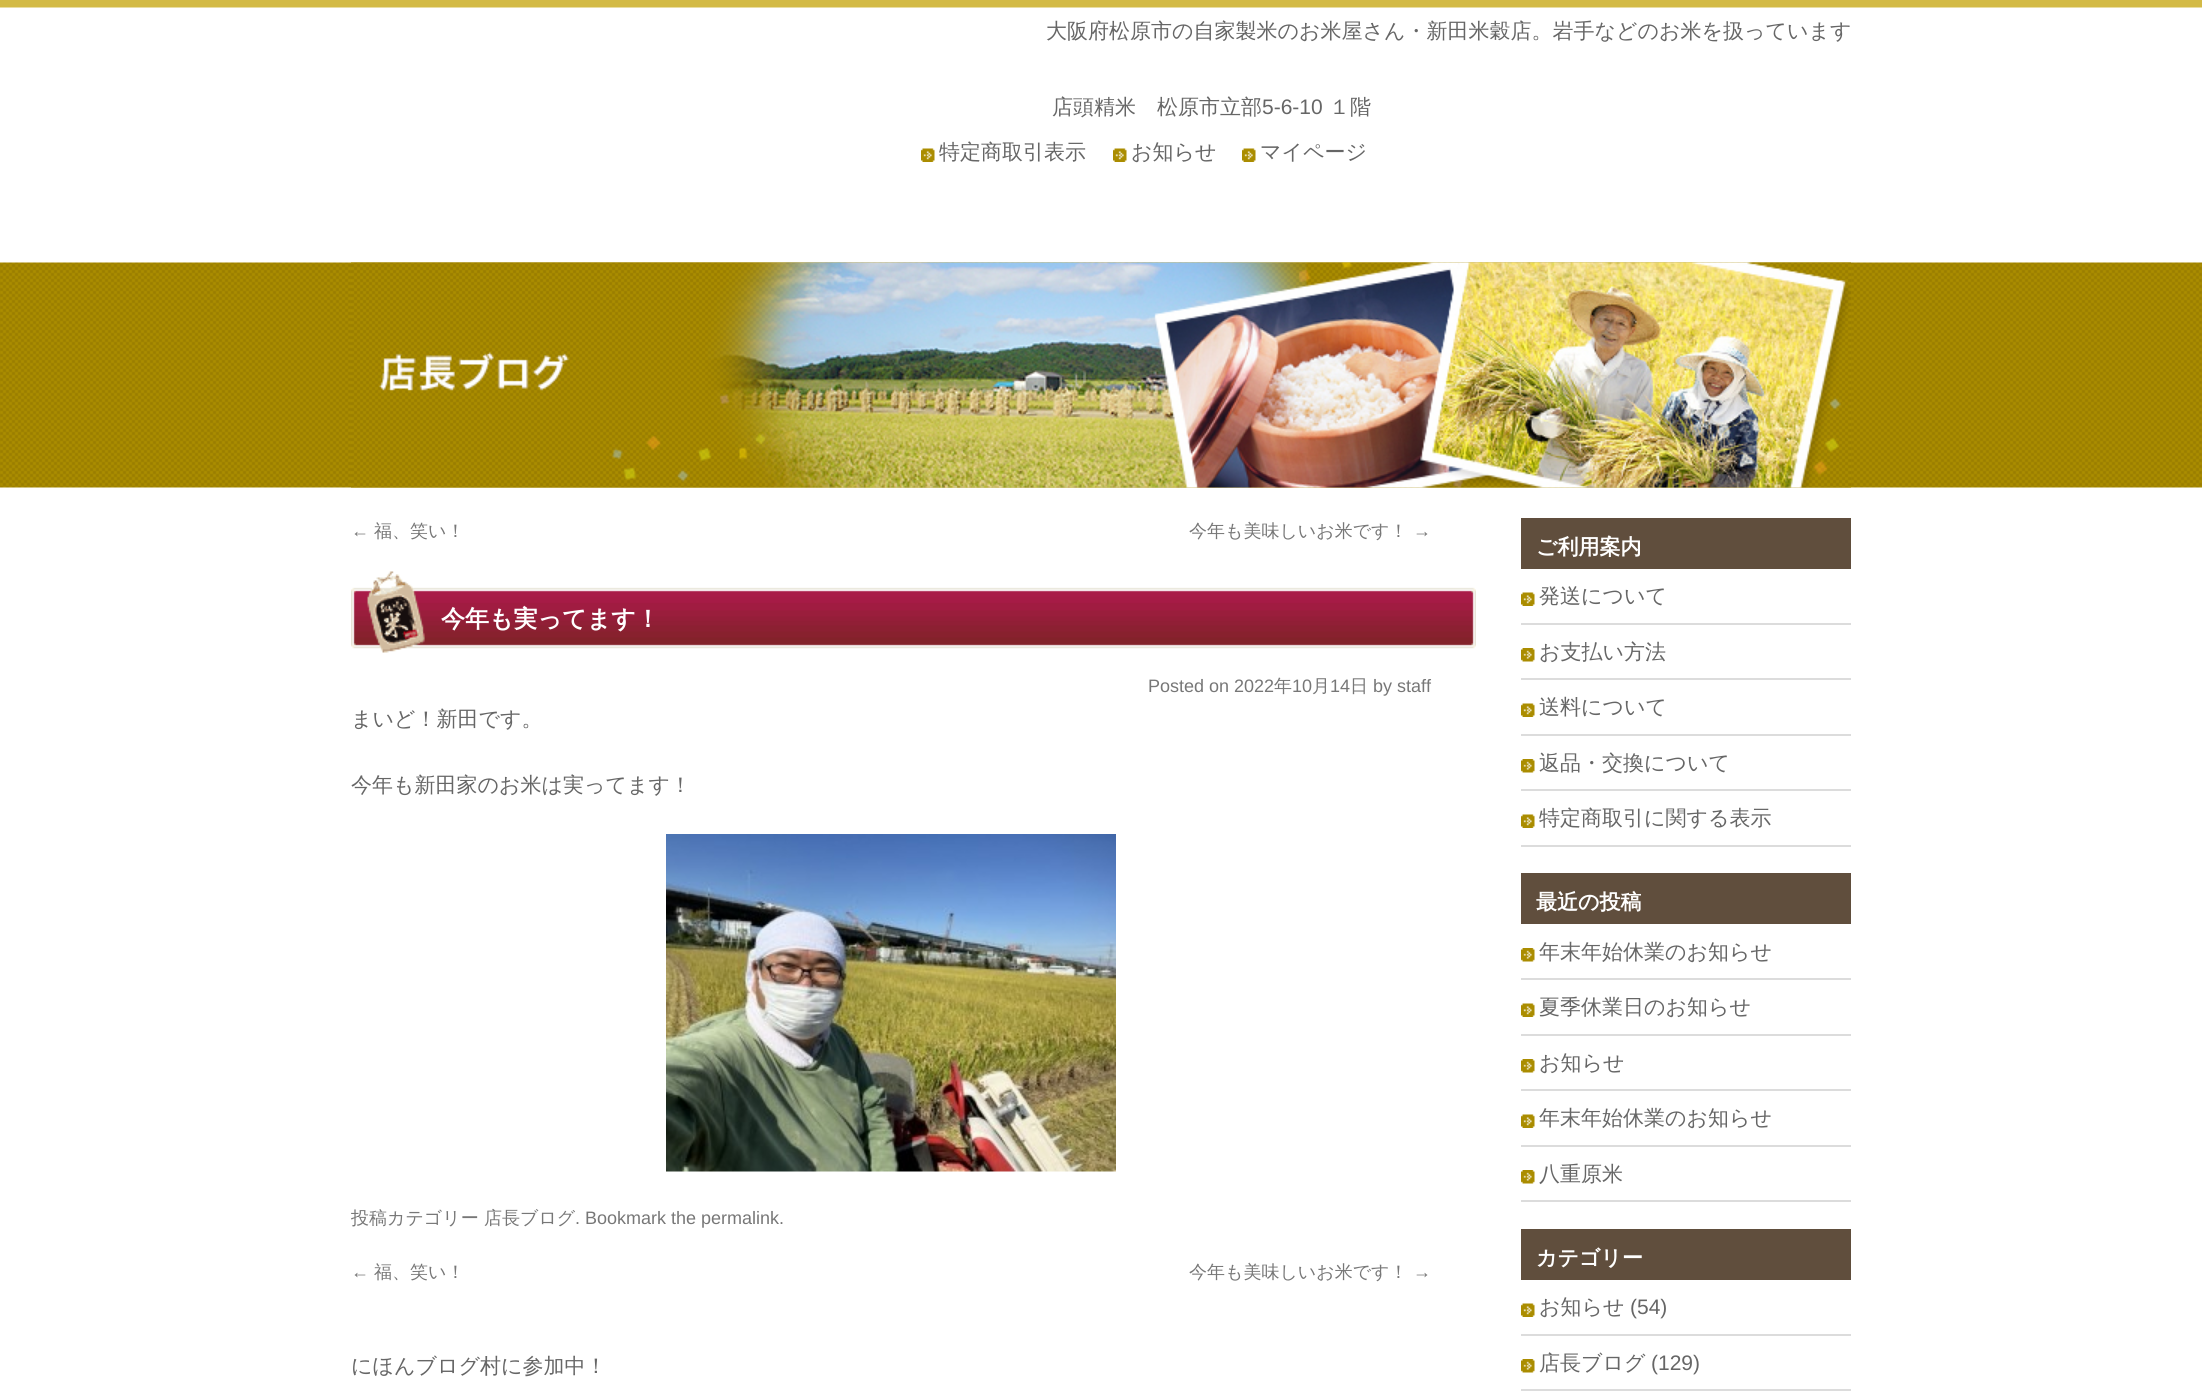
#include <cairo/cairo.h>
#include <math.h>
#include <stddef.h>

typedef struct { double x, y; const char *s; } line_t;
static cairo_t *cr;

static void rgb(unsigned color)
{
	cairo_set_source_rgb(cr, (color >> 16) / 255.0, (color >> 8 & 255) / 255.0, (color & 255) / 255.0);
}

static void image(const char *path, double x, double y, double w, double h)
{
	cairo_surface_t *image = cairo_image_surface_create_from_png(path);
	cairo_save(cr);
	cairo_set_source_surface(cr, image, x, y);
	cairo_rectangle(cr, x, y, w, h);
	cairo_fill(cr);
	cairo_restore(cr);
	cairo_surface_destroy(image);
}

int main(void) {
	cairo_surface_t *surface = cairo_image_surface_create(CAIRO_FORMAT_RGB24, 2202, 1400);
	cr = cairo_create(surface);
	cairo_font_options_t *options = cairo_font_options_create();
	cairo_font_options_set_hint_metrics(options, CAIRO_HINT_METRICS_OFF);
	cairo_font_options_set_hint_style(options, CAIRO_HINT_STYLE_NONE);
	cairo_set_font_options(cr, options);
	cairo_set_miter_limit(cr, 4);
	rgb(0xffffff);
	cairo_paint(cr);
	image("img/1.png", 0, 0, 2202, 488);
	image("img/2.png", 921, 148, 14, 14);
	image("img/3.png", 1113, 148, 14, 14);
	image("img/3.png", 1242, 148, 14, 14);
	image("img/4.png", 351, 262, 1500, 226);
	image("img/5.png", 351, 571, 1125, 82);
	image("img/6.png", 666, 834, 450, 338);
	rgb(0x604e3d);
	cairo_rectangle(cr, 1521, 518, 330, 51);
	cairo_fill(cr);
	rgb(0xdcdcdc);
	cairo_rectangle(cr, 1521, 623, 330, 2);
	cairo_fill(cr);
	image("img/7.png", 1521, 592, 14, 14);
	cairo_rectangle(cr, 1521, 678, 330, 2);
	cairo_fill(cr);
	image("img/8.png", 1521, 648, 14, 14);
	cairo_rectangle(cr, 1521, 734, 330, 2);
	cairo_fill(cr);
	image("img/7.png", 1521, 703, 14, 14);
	cairo_rectangle(cr, 1521, 789, 330, 2);
	cairo_fill(cr);
	image("img/8.png", 1521, 759, 14, 14);
	cairo_rectangle(cr, 1521, 845, 330, 2);
	cairo_fill(cr);
	image("img/7.png", 1521, 814, 14, 14);
	rgb(0x604e3d);
	cairo_rectangle(cr, 1521, 873, 330, 51);
	cairo_fill(cr);
	rgb(0xdcdcdc);
	cairo_rectangle(cr, 1521, 978, 330, 2);
	cairo_fill(cr);
	image("img/8.png", 1521, 948, 14, 14);
	cairo_rectangle(cr, 1521, 1034, 330, 2);
	cairo_fill(cr);
	image("img/7.png", 1521, 1003, 14, 14);
	cairo_rectangle(cr, 1521, 1089, 330, 2);
	cairo_fill(cr);
	image("img/8.png", 1521, 1059, 14, 14);
	cairo_rectangle(cr, 1521, 1145, 330, 2);
	cairo_fill(cr);
	image("img/7.png", 1521, 1114, 14, 14);
	cairo_rectangle(cr, 1521, 1200, 330, 2);
	cairo_fill(cr);
	image("img/8.png", 1521, 1170, 14, 14);
	rgb(0x604e3d);
	cairo_rectangle(cr, 1521, 1229, 330, 51);
	cairo_fill(cr);
	rgb(0xdcdcdc);
	cairo_rectangle(cr, 1521, 1334, 330, 2);
	cairo_fill(cr);
	image("img/7.png", 1521, 1303, 14, 14);
	cairo_rectangle(cr, 1521, 1389, 330, 2);
	cairo_fill(cr);
	image("img/8.png", 1521, 1359, 14, 14);
	cairo_select_font_face(cr, "WenQuanYi Zen Hei Medium", CAIRO_FONT_SLANT_NORMAL, CAIRO_FONT_WEIGHT_NORMAL);
	cairo_set_font_size(cr, 21);
	rgb(0x666666);
	cairo_move_to(cr, 1046, 38);
	cairo_show_text(cr, "大阪府松原市の自家製米のお米屋さん・新田米穀店。岩手などのお米を扱っています");
	cairo_move_to(cr, 1052, 114);
	cairo_show_text(cr, "店頭精米　松原市立部");
	cairo_select_font_face(cr, "Liberation Sans", CAIRO_FONT_SLANT_NORMAL, CAIRO_FONT_WEIGHT_NORMAL);
	cairo_move_to(cr, 1262, 114);
	cairo_show_text(cr, "5-6-10");
	cairo_select_font_face(cr, "WenQuanYi Zen Hei Medium", CAIRO_FONT_SLANT_NORMAL, CAIRO_FONT_WEIGHT_NORMAL);
	{
		static const line_t items[] = {
			{1329, 114, "１階"},
			{939, 159, "特定商取引表示"},
			{1131, 159, "お知らせ"},
			{1260, 159, "マイページ"},
		};
		for (size_t i = 0; i < sizeof items / sizeof *items; i++) {
			cairo_move_to(cr, items[i].x, items[i].y);
			cairo_show_text(cr, items[i].s);
		}
	}
	cairo_select_font_face(cr, "Liberation Sans", CAIRO_FONT_SLANT_NORMAL, CAIRO_FONT_WEIGHT_NORMAL);
	cairo_set_font_size(cr, 18);
	rgb(0x777777);
	cairo_move_to(cr, 351, 537);
	cairo_show_text(cr, "←");
	cairo_select_font_face(cr, "WenQuanYi Zen Hei Medium", CAIRO_FONT_SLANT_NORMAL, CAIRO_FONT_WEIGHT_NORMAL);
	cairo_move_to(cr, 374, 537);
	cairo_show_text(cr, "福、笑い！");
	cairo_move_to(cr, 1189, 537);
	cairo_show_text(cr, "今年も美味しいお米です！");
	cairo_select_font_face(cr, "Liberation Sans", CAIRO_FONT_SLANT_NORMAL, CAIRO_FONT_WEIGHT_NORMAL);
	cairo_move_to(cr, 1413, 537);
	cairo_show_text(cr, "→");
	cairo_select_font_face(cr, "WenQuanYi Zen Hei", CAIRO_FONT_SLANT_NORMAL, CAIRO_FONT_WEIGHT_BOLD);
	cairo_set_font_size(cr, 24);
	rgb(0xffffff);
	cairo_move_to(cr, 441, 627);
	cairo_show_text(cr, "今年も実ってます！");
	cairo_select_font_face(cr, "Liberation Sans", CAIRO_FONT_SLANT_NORMAL, CAIRO_FONT_WEIGHT_NORMAL);
	cairo_set_font_size(cr, 18);
	rgb(0x777777);
	cairo_move_to(cr, 1148, 692);
	cairo_show_text(cr, "Posted on 2022");
	cairo_select_font_face(cr, "WenQuanYi Zen Hei Medium", CAIRO_FONT_SLANT_NORMAL, CAIRO_FONT_WEIGHT_NORMAL);
	cairo_move_to(cr, 1274, 692);
	cairo_show_text(cr, "年");
	cairo_select_font_face(cr, "Liberation Sans", CAIRO_FONT_SLANT_NORMAL, CAIRO_FONT_WEIGHT_NORMAL);
	cairo_move_to(cr, 1292, 692);
	cairo_show_text(cr, "10");
	cairo_select_font_face(cr, "WenQuanYi Zen Hei Medium", CAIRO_FONT_SLANT_NORMAL, CAIRO_FONT_WEIGHT_NORMAL);
	cairo_move_to(cr, 1312, 692);
	cairo_show_text(cr, "月");
	cairo_select_font_face(cr, "Liberation Sans", CAIRO_FONT_SLANT_NORMAL, CAIRO_FONT_WEIGHT_NORMAL);
	cairo_move_to(cr, 1330, 692);
	cairo_show_text(cr, "14");
	cairo_select_font_face(cr, "WenQuanYi Zen Hei Medium", CAIRO_FONT_SLANT_NORMAL, CAIRO_FONT_WEIGHT_NORMAL);
	cairo_move_to(cr, 1350, 692);
	cairo_show_text(cr, "日");
	cairo_select_font_face(cr, "Liberation Sans", CAIRO_FONT_SLANT_NORMAL, CAIRO_FONT_WEIGHT_NORMAL);
	cairo_move_to(cr, 1373, 692);
	cairo_show_text(cr, "by staff");
	cairo_select_font_face(cr, "WenQuanYi Zen Hei Medium", CAIRO_FONT_SLANT_NORMAL, CAIRO_FONT_WEIGHT_NORMAL);
	cairo_set_font_size(cr, 21);
	rgb(0x666666);
	cairo_move_to(cr, 351, 726);
	cairo_show_text(cr, "まいど！新田です。");
	cairo_move_to(cr, 351, 792);
	cairo_show_text(cr, "今年も新田家のお米は実ってます！");
	cairo_set_font_size(cr, 18);
	rgb(0x777777);
	cairo_move_to(cr, 351, 1224);
	cairo_show_text(cr, "投稿カテゴリー");
	cairo_move_to(cr, 484, 1224);
	cairo_show_text(cr, "店長ブログ");
	cairo_select_font_face(cr, "Liberation Sans", CAIRO_FONT_SLANT_NORMAL, CAIRO_FONT_WEIGHT_NORMAL);
	cairo_move_to(cr, 575, 1224);
	cairo_show_text(cr, ". Bookmark the permalink.");
	cairo_move_to(cr, 351, 1278);
	cairo_show_text(cr, "←");
	cairo_select_font_face(cr, "WenQuanYi Zen Hei Medium", CAIRO_FONT_SLANT_NORMAL, CAIRO_FONT_WEIGHT_NORMAL);
	cairo_move_to(cr, 374, 1278);
	cairo_show_text(cr, "福、笑い！");
	cairo_move_to(cr, 1189, 1278);
	cairo_show_text(cr, "今年も美味しいお米です！");
	cairo_select_font_face(cr, "Liberation Sans", CAIRO_FONT_SLANT_NORMAL, CAIRO_FONT_WEIGHT_NORMAL);
	cairo_move_to(cr, 1413, 1278);
	cairo_show_text(cr, "→");
	cairo_select_font_face(cr, "WenQuanYi Zen Hei Medium", CAIRO_FONT_SLANT_NORMAL, CAIRO_FONT_WEIGHT_NORMAL);
	cairo_set_font_size(cr, 21);
	rgb(0x666666);
	cairo_move_to(cr, 351, 1373);
	cairo_show_text(cr, "にほんブログ村に参加中！");
	cairo_select_font_face(cr, "WenQuanYi Zen Hei", CAIRO_FONT_SLANT_NORMAL, CAIRO_FONT_WEIGHT_BOLD);
	rgb(0xffffff);
	cairo_move_to(cr, 1536, 554);
	cairo_show_text(cr, "ご利用案内");
	cairo_select_font_face(cr, "WenQuanYi Zen Hei Medium", CAIRO_FONT_SLANT_NORMAL, CAIRO_FONT_WEIGHT_NORMAL);
	rgb(0x666666);
	{
		static const line_t items[] = {
			{1539, 603, "発送について"},
			{1539, 659, "お支払い方法"},
			{1539, 714, "送料について"},
			{1539, 770, "返品・交換について"},
			{1539, 825, "特定商取引に関する表示"},
		};
		for (size_t i = 0; i < sizeof items / sizeof *items; i++) {
			cairo_move_to(cr, items[i].x, items[i].y);
			cairo_show_text(cr, items[i].s);
		}
	}
	cairo_select_font_face(cr, "WenQuanYi Zen Hei", CAIRO_FONT_SLANT_NORMAL, CAIRO_FONT_WEIGHT_BOLD);
	rgb(0xffffff);
	cairo_move_to(cr, 1536, 909);
	cairo_show_text(cr, "最近の投稿");
	cairo_select_font_face(cr, "WenQuanYi Zen Hei Medium", CAIRO_FONT_SLANT_NORMAL, CAIRO_FONT_WEIGHT_NORMAL);
	rgb(0x666666);
	{
		static const line_t items[] = {
			{1539, 959, "年末年始休業のお知らせ"},
			{1539, 1014, "夏季休業日のお知らせ"},
			{1539, 1070, "お知らせ"},
			{1539, 1125, "年末年始休業のお知らせ"},
			{1539, 1181, "八重原米"},
		};
		for (size_t i = 0; i < sizeof items / sizeof *items; i++) {
			cairo_move_to(cr, items[i].x, items[i].y);
			cairo_show_text(cr, items[i].s);
		}
	}
	cairo_select_font_face(cr, "WenQuanYi Zen Hei", CAIRO_FONT_SLANT_NORMAL, CAIRO_FONT_WEIGHT_BOLD);
	rgb(0xffffff);
	cairo_move_to(cr, 1536, 1265);
	cairo_show_text(cr, "カテゴリー");
	cairo_select_font_face(cr, "WenQuanYi Zen Hei Medium", CAIRO_FONT_SLANT_NORMAL, CAIRO_FONT_WEIGHT_NORMAL);
	rgb(0x666666);
	cairo_move_to(cr, 1539, 1314);
	cairo_show_text(cr, "お知らせ");
	cairo_select_font_face(cr, "Liberation Sans", CAIRO_FONT_SLANT_NORMAL, CAIRO_FONT_WEIGHT_NORMAL);
	cairo_move_to(cr, 1630, 1314);
	cairo_show_text(cr, "(54)");
	cairo_select_font_face(cr, "WenQuanYi Zen Hei Medium", CAIRO_FONT_SLANT_NORMAL, CAIRO_FONT_WEIGHT_NORMAL);
	cairo_move_to(cr, 1539, 1370);
	cairo_show_text(cr, "店長ブログ");
	cairo_select_font_face(cr, "Liberation Sans", CAIRO_FONT_SLANT_NORMAL, CAIRO_FONT_WEIGHT_NORMAL);
	cairo_move_to(cr, 1651, 1370);
	cairo_show_text(cr, "(129)");
	cairo_surface_write_to_png(surface, "page.png");
	cairo_font_options_destroy(options);
	cairo_destroy(cr);
	cairo_surface_destroy(surface);
	return 0;
}
